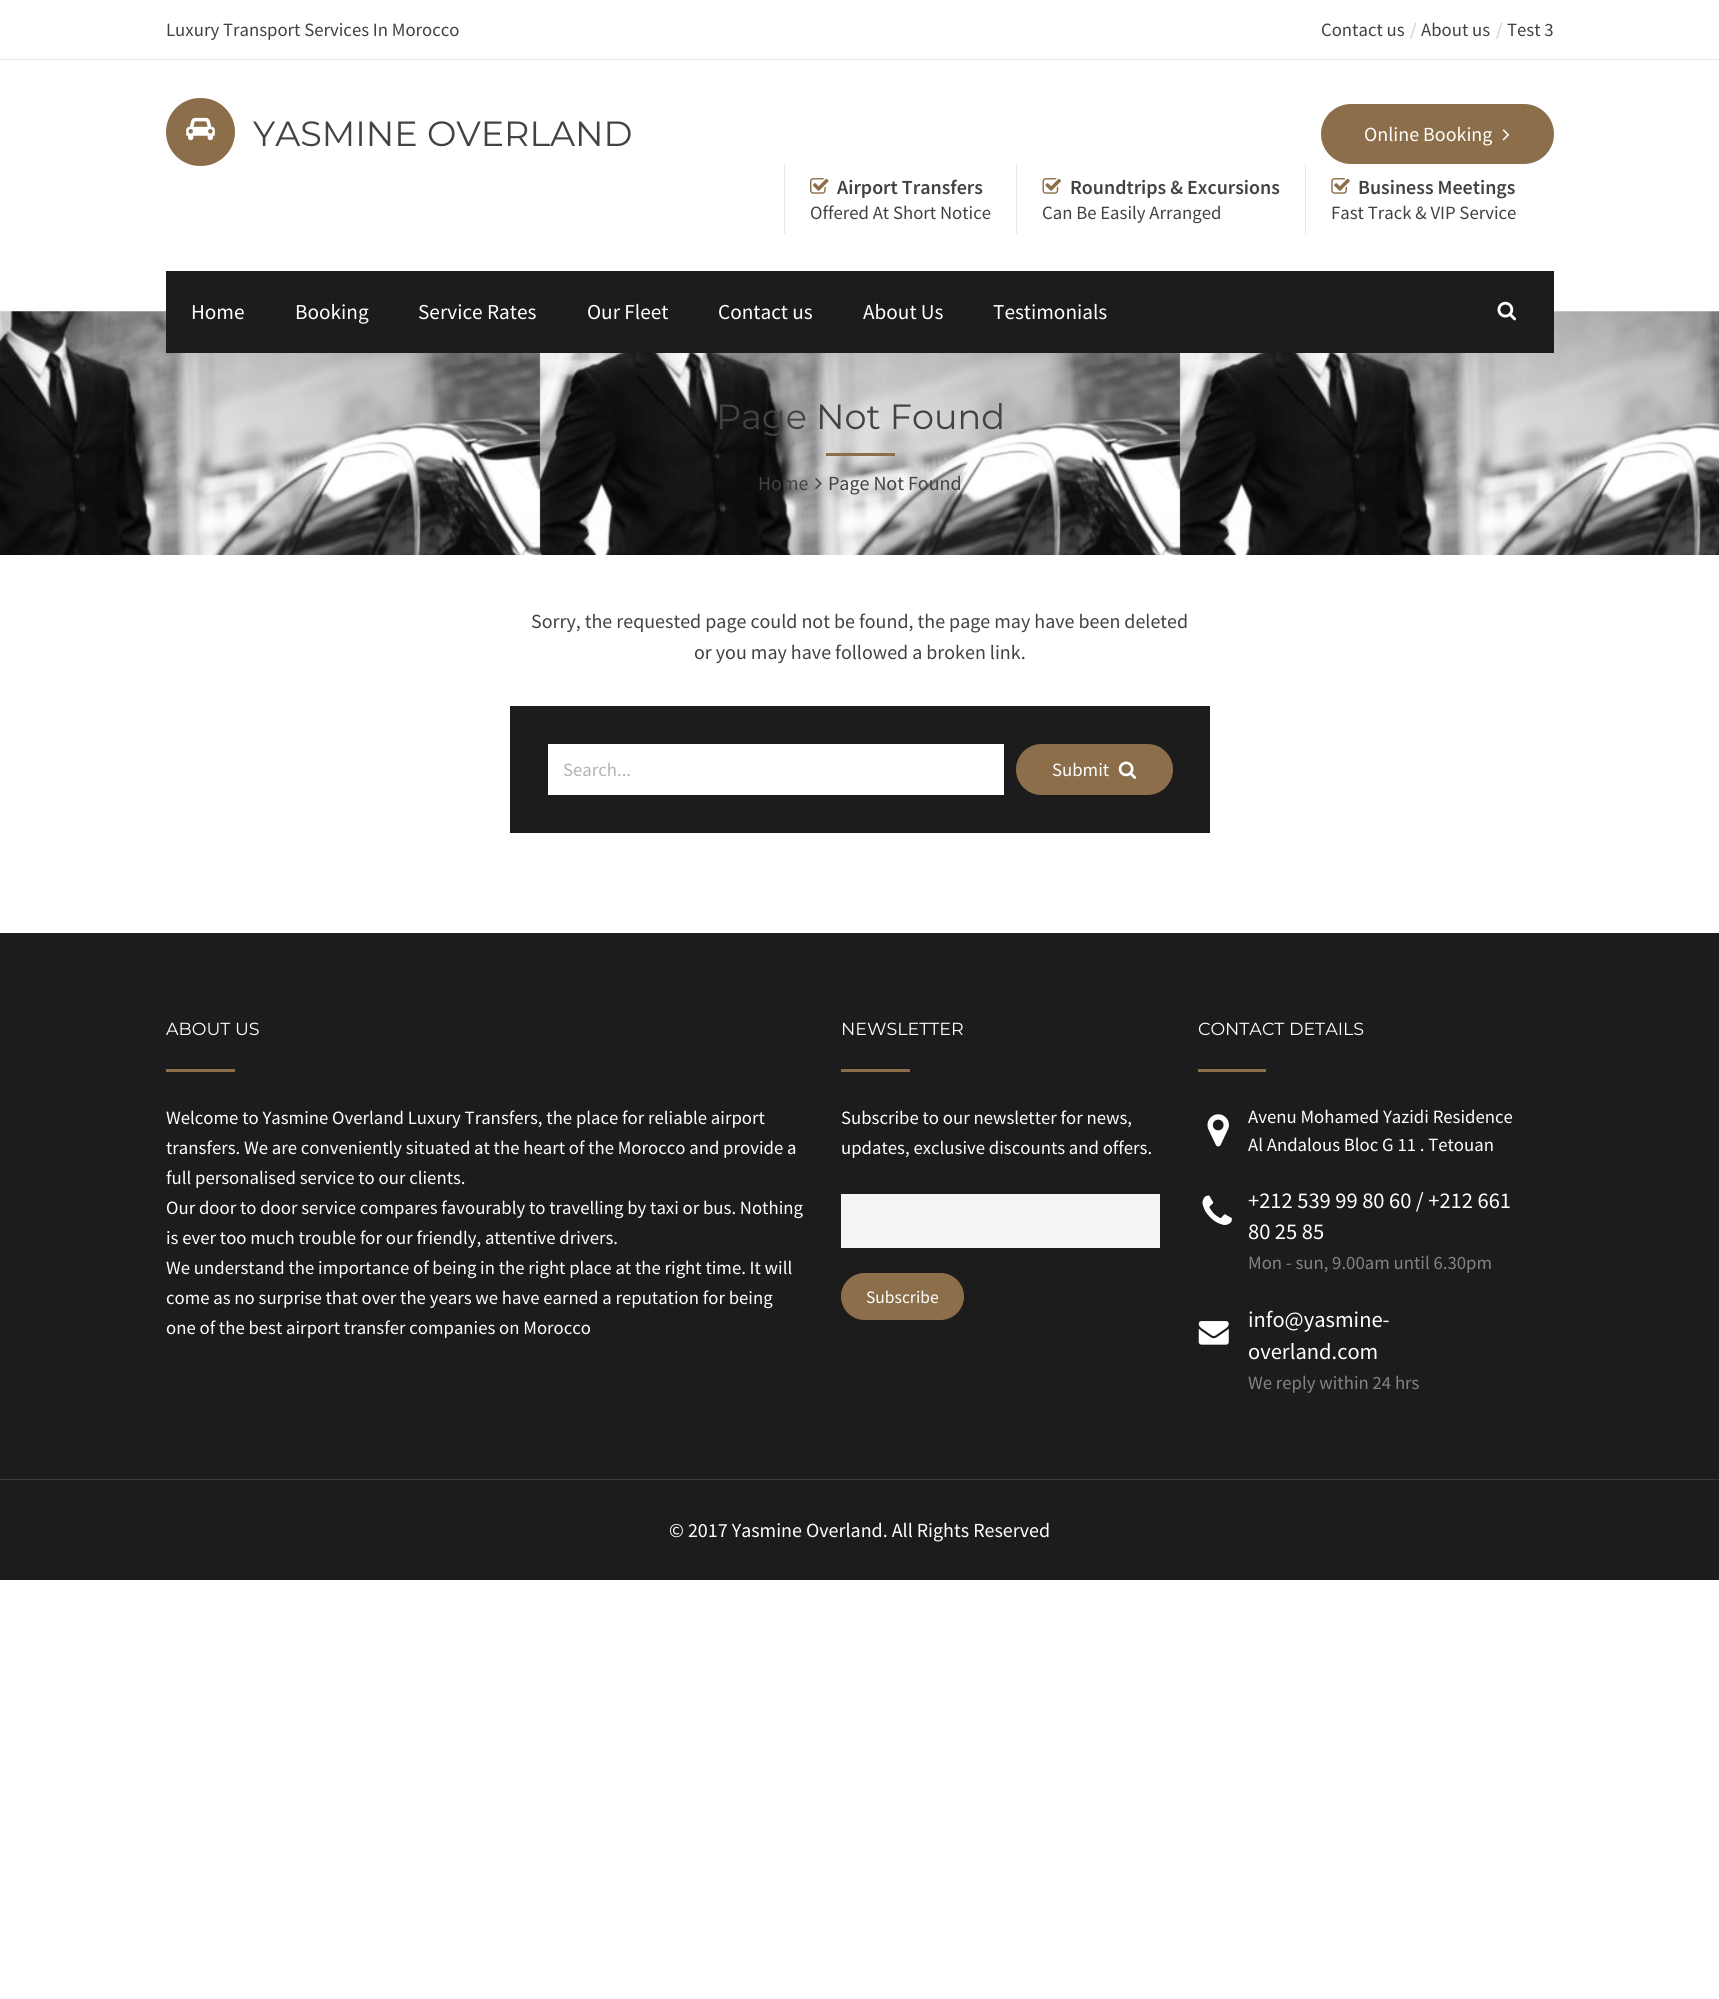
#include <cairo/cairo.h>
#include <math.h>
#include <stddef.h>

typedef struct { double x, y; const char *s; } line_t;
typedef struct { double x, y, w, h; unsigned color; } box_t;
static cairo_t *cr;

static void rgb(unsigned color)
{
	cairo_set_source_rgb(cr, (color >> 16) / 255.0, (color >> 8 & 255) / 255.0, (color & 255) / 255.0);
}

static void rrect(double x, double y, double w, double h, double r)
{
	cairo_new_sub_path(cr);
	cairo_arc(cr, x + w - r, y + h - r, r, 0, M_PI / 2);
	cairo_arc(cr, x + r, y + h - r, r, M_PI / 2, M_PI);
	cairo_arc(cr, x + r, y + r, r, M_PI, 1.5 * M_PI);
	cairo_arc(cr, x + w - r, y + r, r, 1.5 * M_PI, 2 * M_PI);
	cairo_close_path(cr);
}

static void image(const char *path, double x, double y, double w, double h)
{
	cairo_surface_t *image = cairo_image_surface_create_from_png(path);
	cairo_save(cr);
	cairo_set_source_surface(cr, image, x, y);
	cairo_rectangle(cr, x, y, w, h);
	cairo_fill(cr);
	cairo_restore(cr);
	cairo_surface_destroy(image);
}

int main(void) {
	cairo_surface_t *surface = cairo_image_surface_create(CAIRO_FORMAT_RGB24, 1719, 1999);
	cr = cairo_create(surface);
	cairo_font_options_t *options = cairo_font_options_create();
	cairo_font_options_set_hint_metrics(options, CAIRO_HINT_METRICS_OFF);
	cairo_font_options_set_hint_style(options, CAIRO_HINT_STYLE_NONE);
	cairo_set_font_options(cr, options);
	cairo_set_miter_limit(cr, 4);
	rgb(0xffffff);
	cairo_paint(cr);
	rgb(0xe8e8e8);
	cairo_rectangle(cr, 0, 59, 1719, 1);
	cairo_fill(cr);
	rgb(0x8c6e4b);
	rrect(166, 98, 69, 68, 34);
	cairo_fill(cr);
	image("img/1.png", 186, 117, 29, 24);
	rrect(1321, 104, 233, 60, 30);
	cairo_fill(cr);
	image("img/2.png", 1502, 129, 8, 12);
	rgb(0xe8e8e8);
	cairo_rectangle(cr, 784, 164, 1, 70);
	cairo_fill(cr);
	image("img/3.png", 810, 178, 19, 16);
	cairo_rectangle(cr, 1016, 164, 1, 70);
	cairo_fill(cr);
	image("img/4.png", 1042, 178, 19, 16);
	cairo_rectangle(cr, 1305, 164, 1, 70);
	cairo_fill(cr);
	image("img/5.png", 1331, 178, 19, 16);
	image("img/7.png", 0, 311, 1719, 244);
	rgb(0x1c1c1c);
	cairo_rectangle(cr, 166, 271, 1388, 82);
	cairo_fill(cr);
	image("img/6.png", 1497, 301, 19, 20);
	rgb(0x8c6e4b);
	cairo_rectangle(cr, 826, 453, 69, 3);
	cairo_fill(cr);
	image("img/8.png", 815, 478, 7, 11);
	rgb(0x1c1c1c);
	cairo_rectangle(cr, 510, 706, 700, 127);
	cairo_fill(cr);
	rgb(0xffffff);
	cairo_rectangle(cr, 548, 744, 456, 51);
	cairo_fill(cr);
	rgb(0x8c6e4b);
	rrect(1016, 744, 157, 51, 25.5);
	cairo_fill(cr);
	image("img/9.png", 1118, 761, 19, 18);
	{
		static const box_t items[] = {
			{0, 933, 1719, 647, 0x1c1c1c},
			{166, 1069, 69, 3, 0x8c6e4b},
			{841, 1069, 69, 3, 0x8c6e4b},
			{841, 1194, 319, 54, 0xf4f4f4},
		};
		for (size_t i = 0; i < sizeof items / sizeof *items; i++) {
			rgb(items[i].color);
			cairo_rectangle(cr, items[i].x, items[i].y, items[i].w, items[i].h);
			cairo_fill(cr);
		}
	}
	rgb(0x8c6e4b);
	rrect(841, 1273, 123, 47, 23.5);
	cairo_fill(cr);
	cairo_rectangle(cr, 1198, 1069, 68, 3);
	cairo_fill(cr);
	image("img/10.png", 1207, 1114, 22, 33);
	image("img/11.png", 1202, 1195, 30, 30);
	image("img/12.png", 1198, 1321, 31, 24);
	rgb(0x3b3b3b);
	cairo_rectangle(cr, 0, 1479, 1719, 1);
	cairo_fill(cr);
	cairo_select_font_face(cr, "Source Sans Pro", CAIRO_FONT_SLANT_NORMAL, CAIRO_FONT_WEIGHT_NORMAL);
	cairo_set_font_size(cr, 18.75);
	rgb(0x424242);
	cairo_move_to(cr, 166, 36);
	cairo_show_text(cr, "Luxury Transport Services In Morocco");
	cairo_move_to(cr, 1321, 36);
	cairo_show_text(cr, "Contact us");
	rgb(0xcccccc);
	cairo_move_to(cr, 1410, 36);
	cairo_show_text(cr, "/");
	rgb(0x424242);
	cairo_move_to(cr, 1421, 36);
	cairo_show_text(cr, "About us");
	rgb(0xcccccc);
	cairo_move_to(cr, 1496, 36);
	cairo_show_text(cr, "/");
	rgb(0x424242);
	cairo_move_to(cr, 1507, 36);
	cairo_show_text(cr, "Test 3");
	cairo_select_font_face(cr, "Montserrat", CAIRO_FONT_SLANT_NORMAL, CAIRO_FONT_WEIGHT_NORMAL);
	cairo_set_font_size(cr, 35);
	cairo_move_to(cr, 253, 146);
	cairo_show_text(cr, "YASMINE OVERLAND");
	cairo_select_font_face(cr, "Source Sans Pro", CAIRO_FONT_SLANT_NORMAL, CAIRO_FONT_WEIGHT_NORMAL);
	cairo_set_font_size(cr, 20);
	rgb(0xffffff);
	cairo_move_to(cr, 1364, 141);
	cairo_show_text(cr, "Online Booking");
	cairo_select_font_face(cr, "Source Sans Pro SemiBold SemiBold", CAIRO_FONT_SLANT_NORMAL, CAIRO_FONT_WEIGHT_NORMAL);
	rgb(0x424242);
	cairo_move_to(cr, 837, 194);
	cairo_show_text(cr, "Airport Transfers");
	cairo_select_font_face(cr, "Source Sans Pro", CAIRO_FONT_SLANT_NORMAL, CAIRO_FONT_WEIGHT_NORMAL);
	cairo_set_font_size(cr, 18.75);
	cairo_move_to(cr, 810, 219);
	cairo_show_text(cr, "Offered At Short Notice");
	cairo_select_font_face(cr, "Source Sans Pro SemiBold SemiBold", CAIRO_FONT_SLANT_NORMAL, CAIRO_FONT_WEIGHT_NORMAL);
	cairo_set_font_size(cr, 20);
	cairo_move_to(cr, 1070, 194);
	cairo_show_text(cr, "Roundtrips & Excursions");
	cairo_select_font_face(cr, "Source Sans Pro", CAIRO_FONT_SLANT_NORMAL, CAIRO_FONT_WEIGHT_NORMAL);
	cairo_set_font_size(cr, 18.75);
	cairo_move_to(cr, 1042, 219);
	cairo_show_text(cr, "Can Be Easily Arranged");
	cairo_select_font_face(cr, "Source Sans Pro SemiBold SemiBold", CAIRO_FONT_SLANT_NORMAL, CAIRO_FONT_WEIGHT_NORMAL);
	cairo_set_font_size(cr, 20);
	cairo_move_to(cr, 1358, 194);
	cairo_show_text(cr, "Business Meetings");
	cairo_select_font_face(cr, "Source Sans Pro", CAIRO_FONT_SLANT_NORMAL, CAIRO_FONT_WEIGHT_NORMAL);
	cairo_set_font_size(cr, 18.75);
	cairo_move_to(cr, 1331, 219);
	cairo_show_text(cr, "Fast Track & VIP Service");
	cairo_set_font_size(cr, 21.25);
	rgb(0xffffff);
	{
		static const line_t items[] = {
			{191, 319, "Home"},
			{295, 319, "Booking"},
			{418, 319, "Service Rates"},
			{587, 319, "Our Fleet"},
			{718, 319, "Contact us"},
			{863, 319, "About Us"},
			{993, 319, "Testimonials"},
		};
		for (size_t i = 0; i < sizeof items / sizeof *items; i++) {
			cairo_move_to(cr, items[i].x, items[i].y);
			cairo_show_text(cr, items[i].s);
		}
	}
	cairo_select_font_face(cr, "Montserrat", CAIRO_FONT_SLANT_NORMAL, CAIRO_FONT_WEIGHT_NORMAL);
	cairo_set_font_size(cr, 35);
	rgb(0x424242);
	cairo_move_to(cr, 716, 429);
	cairo_show_text(cr, "Page Not Found");
	cairo_select_font_face(cr, "Source Sans Pro", CAIRO_FONT_SLANT_NORMAL, CAIRO_FONT_WEIGHT_NORMAL);
	cairo_set_font_size(cr, 20);
	{
		static const line_t items[] = {
			{758, 490, "Home"},
			{828, 490, "Page Not Found"},
			{531, 628, "Sorry, the requested page could not be found, the page may have been deleted"},
			{694, 659, "or you may have followed a broken link."},
		};
		for (size_t i = 0; i < sizeof items / sizeof *items; i++) {
			cairo_move_to(cr, items[i].x, items[i].y);
			cairo_show_text(cr, items[i].s);
		}
	}
	cairo_set_font_size(cr, 18.75);
	rgb(0xb4b4b4);
	cairo_move_to(cr, 563, 776);
	cairo_show_text(cr, "Search...");
	rgb(0xffffff);
	cairo_move_to(cr, 1052, 776);
	cairo_show_text(cr, "Submit");
	cairo_select_font_face(cr, "Montserrat", CAIRO_FONT_SLANT_NORMAL, CAIRO_FONT_WEIGHT_NORMAL);
	cairo_set_font_size(cr, 17.5);
	cairo_move_to(cr, 166, 1035);
	cairo_show_text(cr, "ABOUT US");
	cairo_select_font_face(cr, "Source Sans Pro", CAIRO_FONT_SLANT_NORMAL, CAIRO_FONT_WEIGHT_NORMAL);
	cairo_set_font_size(cr, 18.75);
	{
		static const line_t items[] = {
			{166, 1124, "Welcome to Yasmine Overland Luxury Transfers, the place for reliable airport"},
			{166, 1154, "transfers. We are conveniently situated at the heart of the Morocco and provide a"},
			{166, 1184, "full personalised service to our clients."},
			{166, 1214, "Our door to door service compares favourably to travelling by taxi or bus. Nothing"},
			{166, 1244, "is ever too much trouble for our friendly, attentive drivers."},
			{166, 1274, "We understand the importance of being in the right place at the right time. It will"},
			{166, 1304, "come as no surprise that over the years we have earned a reputation for being"},
			{166, 1334, "one of the best airport transfer companies on Morocco"},
		};
		for (size_t i = 0; i < sizeof items / sizeof *items; i++) {
			cairo_move_to(cr, items[i].x, items[i].y);
			cairo_show_text(cr, items[i].s);
		}
	}
	cairo_select_font_face(cr, "Montserrat", CAIRO_FONT_SLANT_NORMAL, CAIRO_FONT_WEIGHT_NORMAL);
	cairo_set_font_size(cr, 17.5);
	cairo_move_to(cr, 841, 1035);
	cairo_show_text(cr, "NEWSLETTER");
	cairo_select_font_face(cr, "Source Sans Pro", CAIRO_FONT_SLANT_NORMAL, CAIRO_FONT_WEIGHT_NORMAL);
	cairo_set_font_size(cr, 18.75);
	cairo_move_to(cr, 841, 1124);
	cairo_show_text(cr, "Subscribe to our newsletter for news,");
	cairo_move_to(cr, 841, 1154);
	cairo_show_text(cr, "updates, exclusive discounts and offers.");
	cairo_set_font_size(cr, 17.5);
	cairo_move_to(cr, 866, 1303);
	cairo_show_text(cr, "Subscribe");
	cairo_select_font_face(cr, "Montserrat", CAIRO_FONT_SLANT_NORMAL, CAIRO_FONT_WEIGHT_NORMAL);
	cairo_move_to(cr, 1198, 1035);
	cairo_show_text(cr, "CONTACT DETAILS");
	cairo_select_font_face(cr, "Source Sans Pro", CAIRO_FONT_SLANT_NORMAL, CAIRO_FONT_WEIGHT_NORMAL);
	cairo_set_font_size(cr, 18.75);
	cairo_move_to(cr, 1248, 1123);
	cairo_show_text(cr, "Avenu Mohamed Yazidi Residence");
	cairo_move_to(cr, 1248, 1151);
	cairo_show_text(cr, "Al Andalous Bloc G 11 . Tetouan");
	cairo_set_font_size(cr, 22.5);
	cairo_move_to(cr, 1248, 1208);
	cairo_show_text(cr, "+212 539 99 80 60 / +212 661");
	cairo_move_to(cr, 1248, 1239);
	cairo_show_text(cr, "80 25 85");
	cairo_set_font_size(cr, 18.75);
	rgb(0x838383);
	cairo_move_to(cr, 1248, 1269);
	cairo_show_text(cr, "Mon - sun, 9.00am until 6.30pm");
	cairo_set_font_size(cr, 22.5);
	rgb(0xffffff);
	cairo_move_to(cr, 1248, 1327);
	cairo_show_text(cr, "info@yasmine-");
	cairo_move_to(cr, 1248, 1359);
	cairo_show_text(cr, "overland.com");
	cairo_set_font_size(cr, 18.75);
	rgb(0x838383);
	cairo_move_to(cr, 1248, 1389);
	cairo_show_text(cr, "We reply within 24 hrs");
	cairo_set_font_size(cr, 20);
	rgb(0xffffff);
	cairo_move_to(cr, 669, 1537);
	cairo_show_text(cr, "© 2017 Yasmine Overland. All Rights Reserved");
	cairo_surface_write_to_png(surface, "page.png");
	cairo_font_options_destroy(options);
	cairo_destroy(cr);
	cairo_surface_destroy(surface);
	return 0;
}
